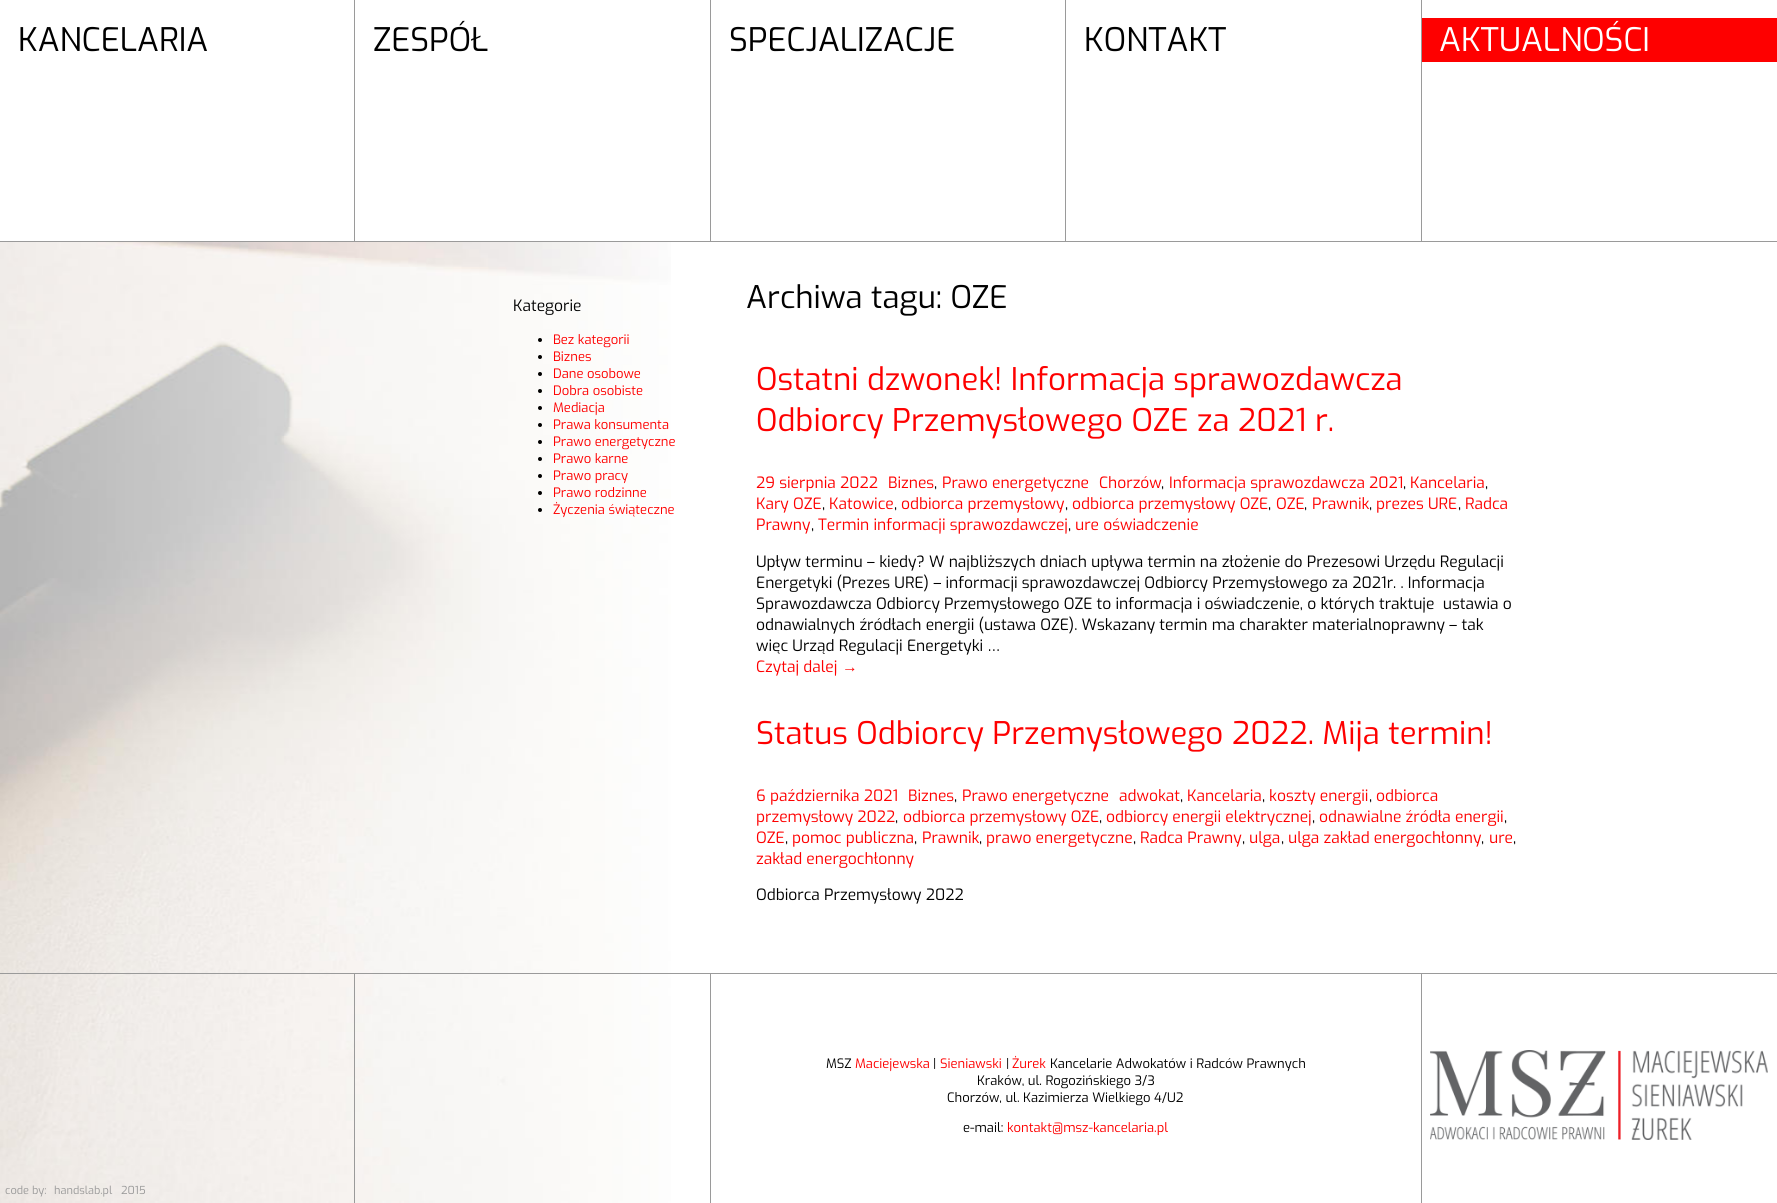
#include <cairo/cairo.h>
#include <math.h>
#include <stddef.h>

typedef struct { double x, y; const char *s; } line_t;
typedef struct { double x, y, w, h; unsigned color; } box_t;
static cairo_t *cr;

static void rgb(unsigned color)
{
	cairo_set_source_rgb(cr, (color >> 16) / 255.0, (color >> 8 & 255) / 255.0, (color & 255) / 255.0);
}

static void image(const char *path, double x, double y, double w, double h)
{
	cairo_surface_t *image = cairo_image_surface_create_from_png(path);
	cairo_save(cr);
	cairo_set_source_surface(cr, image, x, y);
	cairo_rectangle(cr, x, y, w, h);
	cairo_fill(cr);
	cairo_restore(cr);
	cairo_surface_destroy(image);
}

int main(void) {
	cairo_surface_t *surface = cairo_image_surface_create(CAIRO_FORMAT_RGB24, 1777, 1203);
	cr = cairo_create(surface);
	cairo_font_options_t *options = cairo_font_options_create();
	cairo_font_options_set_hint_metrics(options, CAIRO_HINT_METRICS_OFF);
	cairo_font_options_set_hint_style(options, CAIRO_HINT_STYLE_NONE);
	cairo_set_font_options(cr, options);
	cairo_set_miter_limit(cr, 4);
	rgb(0xffffff);
	cairo_paint(cr);
	{
		static const box_t items[] = {
			{0, 241, 1777, 1, 0x9a9a9a},
			{354, 0, 1, 241, 0x9a9a9a},
			{710, 0, 1, 241, 0x9a9a9a},
			{1065, 0, 1, 241, 0x9a9a9a},
			{1421, 0, 1, 241, 0x9a9a9a},
			{1422, 18, 355, 44, 0xfe0000},
		};
		for (size_t i = 0; i < sizeof items / sizeof *items; i++) {
			rgb(items[i].color);
			cairo_rectangle(cr, items[i].x, items[i].y, items[i].w, items[i].h);
			cairo_fill(cr);
		}
	}
	image("img/1.png", 0, 242, 671, 961);
	rgb(0x000000);
	cairo_arc(cr, 540, 340, 2, 0, 2 * M_PI);
	cairo_fill(cr);
	cairo_arc(cr, 540, 357, 2, 0, 2 * M_PI);
	cairo_fill(cr);
	cairo_arc(cr, 540, 374, 2, 0, 2 * M_PI);
	cairo_fill(cr);
	cairo_arc(cr, 540, 391, 2, 0, 2 * M_PI);
	cairo_fill(cr);
	cairo_arc(cr, 540, 408, 2, 0, 2 * M_PI);
	cairo_fill(cr);
	cairo_arc(cr, 540, 425, 2, 0, 2 * M_PI);
	cairo_fill(cr);
	cairo_arc(cr, 540, 442, 2, 0, 2 * M_PI);
	cairo_fill(cr);
	cairo_arc(cr, 540, 459, 2, 0, 2 * M_PI);
	cairo_fill(cr);
	cairo_arc(cr, 540, 476, 2, 0, 2 * M_PI);
	cairo_fill(cr);
	cairo_arc(cr, 540, 493, 2, 0, 2 * M_PI);
	cairo_fill(cr);
	cairo_arc(cr, 540, 510, 2, 0, 2 * M_PI);
	cairo_fill(cr);
	{
		static const box_t items[] = {
			{0, 973, 1777, 1, 0x9a9a9a},
			{710, 974, 1, 229, 0x9a9a9a},
			{1421, 974, 1, 229, 0x9a9a9a},
			{354, 974, 1, 229, 0x9a9a9a},
		};
		for (size_t i = 0; i < sizeof items / sizeof *items; i++) {
			rgb(items[i].color);
			cairo_rectangle(cr, items[i].x, items[i].y, items[i].w, items[i].h);
			cairo_fill(cr);
		}
	}
	image("img/2.png", 1430, 1050, 338, 90);
	cairo_select_font_face(cr, "Exo", CAIRO_FONT_SLANT_NORMAL, CAIRO_FONT_WEIGHT_NORMAL);
	cairo_set_font_size(cr, 32.5);
	rgb(0x000000);
	{
		static const line_t items[] = {
			{18, 51, "KANCELARIA"},
			{373, 51, "ZESPÓŁ"},
			{729, 51, "SPECJALIZACJE"},
			{1084, 51, "KONTAKT"},
		};
		for (size_t i = 0; i < sizeof items / sizeof *items; i++) {
			cairo_move_to(cr, items[i].x, items[i].y);
			cairo_show_text(cr, items[i].s);
		}
	}
	rgb(0xffffff);
	cairo_move_to(cr, 1439, 51);
	cairo_show_text(cr, "AKTUALNOŚCI");
	cairo_set_font_size(cr, 31.2);
	rgb(0x000000);
	cairo_move_to(cr, 746, 308);
	cairo_show_text(cr, "Archiwa tagu: OZE");
	rgb(0xfe0000);
	cairo_move_to(cr, 756, 390);
	cairo_show_text(cr, "Ostatni dzwonek! Informacja sprawozdawcza");
	cairo_move_to(cr, 756, 431);
	cairo_show_text(cr, "Odbiorcy Przemysłowego OZE za 2021 r.");
	cairo_set_font_size(cr, 15.6);
	cairo_move_to(cr, 756, 488);
	cairo_show_text(cr, "29 sierpnia 2022");
	cairo_move_to(cr, 888, 488);
	cairo_show_text(cr, "Biznes");
	rgb(0x000000);
	cairo_move_to(cr, 934, 488);
	cairo_show_text(cr, ",");
	rgb(0xfe0000);
	cairo_move_to(cr, 942, 488);
	cairo_show_text(cr, "Prawo energetyczne");
	cairo_move_to(cr, 1099, 488);
	cairo_show_text(cr, "Chorzów");
	rgb(0x000000);
	cairo_move_to(cr, 1161, 488);
	cairo_show_text(cr, ",");
	rgb(0xfe0000);
	cairo_move_to(cr, 1169, 488);
	cairo_show_text(cr, "Informacja sprawozdawcza 2021");
	rgb(0x000000);
	cairo_move_to(cr, 1403, 488);
	cairo_show_text(cr, ",");
	rgb(0xfe0000);
	cairo_move_to(cr, 1410, 488);
	cairo_show_text(cr, "Kancelaria");
	rgb(0x000000);
	cairo_move_to(cr, 1485, 488);
	cairo_show_text(cr, ",");
	rgb(0xfe0000);
	cairo_move_to(cr, 756, 509);
	cairo_show_text(cr, "Kary OZE");
	rgb(0x000000);
	cairo_move_to(cr, 822, 509);
	cairo_show_text(cr, ",");
	rgb(0xfe0000);
	cairo_move_to(cr, 829, 509);
	cairo_show_text(cr, "Katowice");
	rgb(0x000000);
	cairo_move_to(cr, 894, 509);
	cairo_show_text(cr, ",");
	rgb(0xfe0000);
	cairo_move_to(cr, 901, 509);
	cairo_show_text(cr, "odbiorca przemysłowy");
	rgb(0x000000);
	cairo_move_to(cr, 1065, 509);
	cairo_show_text(cr, ",");
	rgb(0xfe0000);
	cairo_move_to(cr, 1072, 509);
	cairo_show_text(cr, "odbiorca przemysłowy OZE");
	rgb(0x000000);
	cairo_move_to(cr, 1268, 509);
	cairo_show_text(cr, ",");
	rgb(0xfe0000);
	cairo_move_to(cr, 1276, 509);
	cairo_show_text(cr, "OZE");
	rgb(0x000000);
	cairo_move_to(cr, 1304, 509);
	cairo_show_text(cr, ",");
	rgb(0xfe0000);
	cairo_move_to(cr, 1312, 509);
	cairo_show_text(cr, "Prawnik");
	rgb(0x000000);
	cairo_move_to(cr, 1369, 509);
	cairo_show_text(cr, ",");
	rgb(0xfe0000);
	cairo_move_to(cr, 1376, 509);
	cairo_show_text(cr, "prezes URE");
	rgb(0x000000);
	cairo_move_to(cr, 1458, 509);
	cairo_show_text(cr, ",");
	rgb(0xfe0000);
	cairo_move_to(cr, 1465, 509);
	cairo_show_text(cr, "Radca");
	cairo_move_to(cr, 756, 530);
	cairo_show_text(cr, "Prawny");
	rgb(0x000000);
	cairo_move_to(cr, 811, 530);
	cairo_show_text(cr, ",");
	rgb(0xfe0000);
	cairo_move_to(cr, 818, 530);
	cairo_show_text(cr, "Termin informacji sprawozdawczej");
	rgb(0x000000);
	cairo_move_to(cr, 1068, 530);
	cairo_show_text(cr, ",");
	rgb(0xfe0000);
	cairo_move_to(cr, 1075, 530);
	cairo_show_text(cr, "ure oświadczenie");
	rgb(0x000000);
	{
		static const line_t items[] = {
			{756, 567, "Upływ terminu – kiedy? W najbliższych dniach upływa termin na złożenie do Prezesowi Urzędu Regulacji"},
			{756, 588, "Energetyki (Prezes URE) – informacji sprawozdawczej Odbiorcy Przemysłowego za 2021r. . Informacja"},
			{756, 609, "Sprawozdawcza Odbiorcy Przemysłowego OZE to informacja i oświadczenie, o których traktuje  ustawia o"},
			{756, 630, "odnawialnych źródłach energii (ustawa OZE). Wskazany termin ma charakter materialnoprawny – tak"},
			{756, 651, "więc Urząd Regulacji Energetyki …"},
		};
		for (size_t i = 0; i < sizeof items / sizeof *items; i++) {
			cairo_move_to(cr, items[i].x, items[i].y);
			cairo_show_text(cr, items[i].s);
		}
	}
	rgb(0xfe0000);
	cairo_move_to(cr, 756, 672);
	cairo_show_text(cr, "Czytaj dalej");
	cairo_select_font_face(cr, "Liberation Serif", CAIRO_FONT_SLANT_NORMAL, CAIRO_FONT_WEIGHT_NORMAL);
	cairo_move_to(cr, 842, 672);
	cairo_show_text(cr, "→");
	cairo_select_font_face(cr, "Exo", CAIRO_FONT_SLANT_NORMAL, CAIRO_FONT_WEIGHT_NORMAL);
	cairo_set_font_size(cr, 31.2);
	cairo_move_to(cr, 756, 744);
	cairo_show_text(cr, "Status Odbiorcy Przemysłowego 2022. Mija termin!");
	cairo_set_font_size(cr, 15.6);
	cairo_move_to(cr, 756, 801);
	cairo_show_text(cr, "6 października 2021");
	cairo_move_to(cr, 908, 801);
	cairo_show_text(cr, "Biznes");
	rgb(0x000000);
	cairo_move_to(cr, 954, 801);
	cairo_show_text(cr, ",");
	rgb(0xfe0000);
	cairo_move_to(cr, 962, 801);
	cairo_show_text(cr, "Prawo energetyczne");
	cairo_move_to(cr, 1119, 801);
	cairo_show_text(cr, "adwokat");
	rgb(0x000000);
	cairo_move_to(cr, 1180, 801);
	cairo_show_text(cr, ",");
	rgb(0xfe0000);
	cairo_move_to(cr, 1187, 801);
	cairo_show_text(cr, "Kancelaria");
	rgb(0x000000);
	cairo_move_to(cr, 1262, 801);
	cairo_show_text(cr, ",");
	rgb(0xfe0000);
	cairo_move_to(cr, 1269, 801);
	cairo_show_text(cr, "koszty energii");
	rgb(0x000000);
	cairo_move_to(cr, 1369, 801);
	cairo_show_text(cr, ",");
	rgb(0xfe0000);
	cairo_move_to(cr, 1376, 801);
	cairo_show_text(cr, "odbiorca");
	cairo_move_to(cr, 756, 822);
	cairo_show_text(cr, "przemysłowy 2022");
	rgb(0x000000);
	cairo_move_to(cr, 895, 822);
	cairo_show_text(cr, ",");
	rgb(0xfe0000);
	cairo_move_to(cr, 903, 822);
	cairo_show_text(cr, "odbiorca przemysłowy OZE");
	rgb(0x000000);
	cairo_move_to(cr, 1099, 822);
	cairo_show_text(cr, ",");
	rgb(0xfe0000);
	cairo_move_to(cr, 1106, 822);
	cairo_show_text(cr, "odbiorcy energii elektrycznej");
	rgb(0x000000);
	cairo_move_to(cr, 1312, 822);
	cairo_show_text(cr, ",");
	rgb(0xfe0000);
	cairo_move_to(cr, 1319, 822);
	cairo_show_text(cr, "odnawialne źródła energii");
	rgb(0x000000);
	cairo_move_to(cr, 1504, 822);
	cairo_show_text(cr, ",");
	rgb(0xfe0000);
	cairo_move_to(cr, 756, 843);
	cairo_show_text(cr, "OZE");
	rgb(0x000000);
	cairo_move_to(cr, 785, 843);
	cairo_show_text(cr, ",");
	rgb(0xfe0000);
	cairo_move_to(cr, 792, 843);
	cairo_show_text(cr, "pomoc publiczna");
	rgb(0x000000);
	cairo_move_to(cr, 914, 843);
	cairo_show_text(cr, ",");
	rgb(0xfe0000);
	cairo_move_to(cr, 922, 843);
	cairo_show_text(cr, "Prawnik");
	rgb(0x000000);
	cairo_move_to(cr, 979, 843);
	cairo_show_text(cr, ",");
	rgb(0xfe0000);
	cairo_move_to(cr, 986, 843);
	cairo_show_text(cr, "prawo energetyczne");
	rgb(0x000000);
	cairo_move_to(cr, 1133, 843);
	cairo_show_text(cr, ",");
	rgb(0xfe0000);
	cairo_move_to(cr, 1140, 843);
	cairo_show_text(cr, "Radca Prawny");
	rgb(0x000000);
	cairo_move_to(cr, 1242, 843);
	cairo_show_text(cr, ",");
	rgb(0xfe0000);
	cairo_move_to(cr, 1249, 843);
	cairo_show_text(cr, "ulga");
	rgb(0x000000);
	cairo_move_to(cr, 1281, 843);
	cairo_show_text(cr, ",");
	rgb(0xfe0000);
	cairo_move_to(cr, 1288, 843);
	cairo_show_text(cr, "ulga zakład energochłonny");
	rgb(0x000000);
	cairo_move_to(cr, 1481, 843);
	cairo_show_text(cr, ",");
	rgb(0xfe0000);
	cairo_move_to(cr, 1489, 843);
	cairo_show_text(cr, "ure");
	rgb(0x000000);
	cairo_move_to(cr, 1513, 843);
	cairo_show_text(cr, ",");
	rgb(0xfe0000);
	cairo_move_to(cr, 756, 864);
	cairo_show_text(cr, "zakład energochłonny");
	rgb(0x000000);
	cairo_move_to(cr, 756, 900);
	cairo_show_text(cr, "Odbiorca Przemysłowy 2022");
	cairo_move_to(cr, 513, 311);
	cairo_show_text(cr, "Kategorie");
	cairo_set_font_size(cr, 13);
	rgb(0xfe0000);
	{
		static const line_t items[] = {
			{553, 344, "Bez kategorii"},
			{553, 361, "Biznes"},
			{553, 378, "Dane osobowe"},
			{553, 395, "Dobra osobiste"},
			{553, 412, "Mediacja"},
			{553, 429, "Prawa konsumenta"},
			{553, 446, "Prawo energetyczne"},
			{553, 463, "Prawo karne"},
			{553, 480, "Prawo pracy"},
			{553, 497, "Prawo rodzinne"},
			{553, 514, "Życzenia świąteczne"},
		};
		for (size_t i = 0; i < sizeof items / sizeof *items; i++) {
			cairo_move_to(cr, items[i].x, items[i].y);
			cairo_show_text(cr, items[i].s);
		}
	}
	rgb(0x000000);
	cairo_move_to(cr, 826, 1068);
	cairo_show_text(cr, "MSZ");
	rgb(0xfe0000);
	cairo_move_to(cr, 855, 1068);
	cairo_show_text(cr, "Maciejewska");
	rgb(0x000000);
	cairo_move_to(cr, 933, 1068);
	cairo_show_text(cr, "|");
	rgb(0xfe0000);
	cairo_move_to(cr, 940, 1068);
	cairo_show_text(cr, "Sieniawski");
	rgb(0x000000);
	cairo_move_to(cr, 1006, 1068);
	cairo_show_text(cr, "|");
	rgb(0xfe0000);
	cairo_move_to(cr, 1012, 1068);
	cairo_show_text(cr, "Żurek");
	rgb(0x000000);
	{
		static const line_t items[] = {
			{1050, 1068, "Kancelarie Adwokatów i Radców Prawnych"},
			{977, 1085, "Kraków, ul. Rogozińskiego 3/3"},
			{947, 1102, "Chorzów, ul. Kazimierza Wielkiego 4/U2"},
			{963, 1132, "e-mail:"},
		};
		for (size_t i = 0; i < sizeof items / sizeof *items; i++) {
			cairo_move_to(cr, items[i].x, items[i].y);
			cairo_show_text(cr, items[i].s);
		}
	}
	rgb(0xfe0000);
	cairo_move_to(cr, 1007, 1132);
	cairo_show_text(cr, "kontakt@msz-kancelaria.pl");
	cairo_set_font_size(cr, 11);
	rgb(0x999999);
	{
		static const line_t items[] = {
			{5, 1194, "code by:"},
			{54, 1194, "handslab.pl"},
			{121, 1194, "2015"},
		};
		for (size_t i = 0; i < sizeof items / sizeof *items; i++) {
			cairo_move_to(cr, items[i].x, items[i].y);
			cairo_show_text(cr, items[i].s);
		}
	}
	cairo_surface_write_to_png(surface, "page.png");
	cairo_font_options_destroy(options);
	cairo_destroy(cr);
	cairo_surface_destroy(surface);
	return 0;
}
